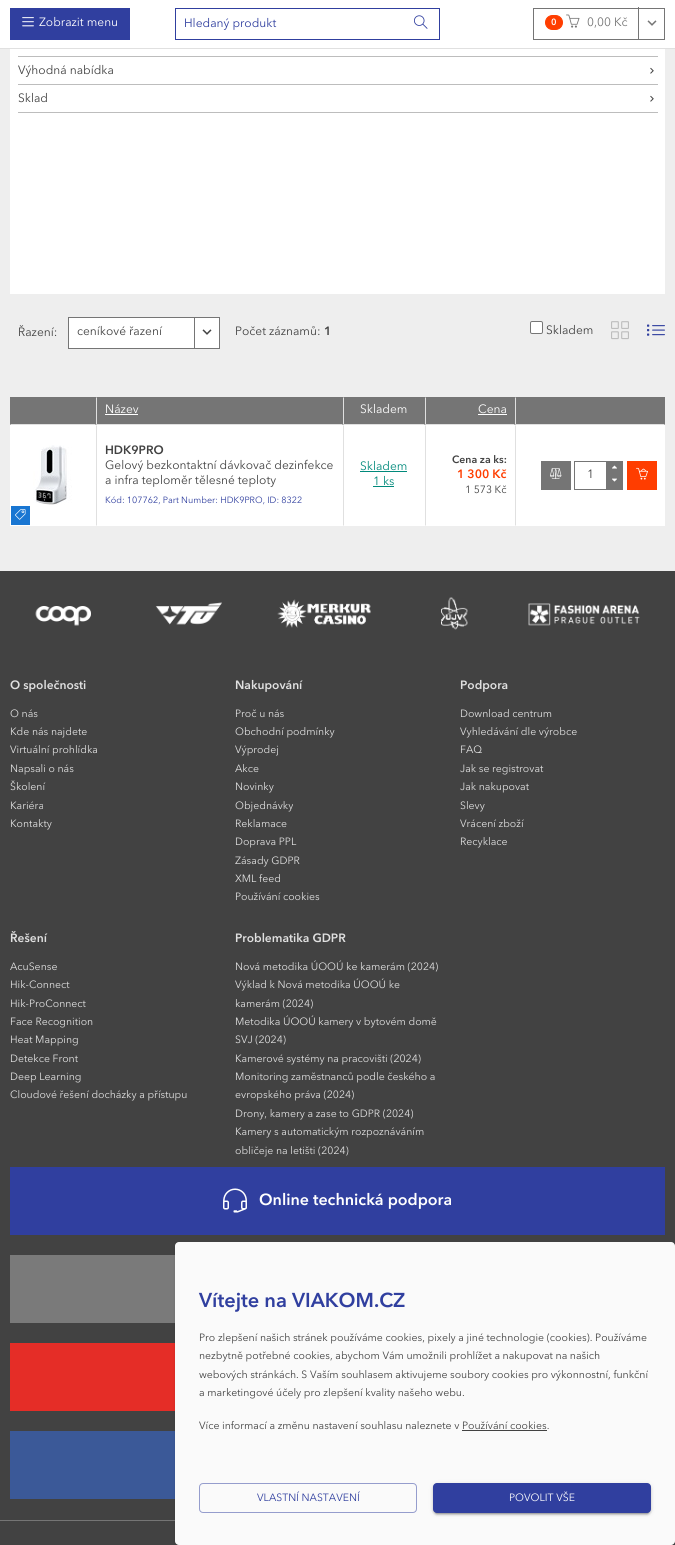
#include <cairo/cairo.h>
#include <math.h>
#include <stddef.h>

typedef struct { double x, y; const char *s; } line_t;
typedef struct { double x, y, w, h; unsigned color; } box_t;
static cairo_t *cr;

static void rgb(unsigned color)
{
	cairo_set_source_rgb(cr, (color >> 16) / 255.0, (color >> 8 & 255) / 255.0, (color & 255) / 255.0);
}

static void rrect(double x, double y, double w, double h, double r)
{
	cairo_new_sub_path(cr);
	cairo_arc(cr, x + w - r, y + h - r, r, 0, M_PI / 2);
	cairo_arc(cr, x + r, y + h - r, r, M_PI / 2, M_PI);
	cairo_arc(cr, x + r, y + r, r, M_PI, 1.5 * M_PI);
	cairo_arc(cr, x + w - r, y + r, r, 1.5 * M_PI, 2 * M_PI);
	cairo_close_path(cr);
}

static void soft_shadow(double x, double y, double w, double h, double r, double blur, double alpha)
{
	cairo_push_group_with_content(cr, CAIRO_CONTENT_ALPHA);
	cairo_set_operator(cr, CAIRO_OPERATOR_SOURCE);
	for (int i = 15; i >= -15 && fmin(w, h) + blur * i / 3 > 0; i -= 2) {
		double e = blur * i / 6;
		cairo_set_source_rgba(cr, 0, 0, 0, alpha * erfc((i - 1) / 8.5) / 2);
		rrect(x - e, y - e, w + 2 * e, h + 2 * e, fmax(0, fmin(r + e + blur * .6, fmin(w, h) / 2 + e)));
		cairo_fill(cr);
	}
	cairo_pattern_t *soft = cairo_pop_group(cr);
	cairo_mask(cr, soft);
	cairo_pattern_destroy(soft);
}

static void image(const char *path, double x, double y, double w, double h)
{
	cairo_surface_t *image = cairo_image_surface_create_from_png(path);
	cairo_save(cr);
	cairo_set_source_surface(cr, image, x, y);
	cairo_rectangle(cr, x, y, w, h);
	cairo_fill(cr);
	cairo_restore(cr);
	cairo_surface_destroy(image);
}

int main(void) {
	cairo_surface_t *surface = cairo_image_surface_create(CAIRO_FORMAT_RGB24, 675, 1545);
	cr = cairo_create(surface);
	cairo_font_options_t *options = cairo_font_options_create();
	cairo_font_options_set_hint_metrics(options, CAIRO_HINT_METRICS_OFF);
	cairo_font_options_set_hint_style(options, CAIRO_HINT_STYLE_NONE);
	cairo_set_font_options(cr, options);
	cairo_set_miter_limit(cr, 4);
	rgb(0xeeeeee);
	cairo_paint(cr);
	{
		static const box_t items[] = {
			{0, 0, 675, 48, 0xffffff},
			{0, 48, 675, 1, 0xe0e0e0},
			{10, 8, 120, 32, 0x303f9f},
		};
		for (size_t i = 0; i < sizeof items / sizeof *items; i++) {
			rgb(items[i].color);
			cairo_rectangle(cr, items[i].x, items[i].y, items[i].w, items[i].h);
			cairo_fill(cr);
		}
	}
	image("img/1.png", 22, 17, 12, 10);
	{
		static const box_t items[] = {
			{175, 8, 265, 1, 0x303f9f},
			{175, 39, 230, 1, 0x303f9f},
			{175, 8, 1, 32, 0x303f9f},
			{439, 8, 1, 32, 0x303f9f},
			{403, 39, 37, 1, 0x303f9f},
		};
		for (size_t i = 0; i < sizeof items / sizeof *items; i++) {
			rgb(items[i].color);
			cairo_rectangle(cr, items[i].x, items[i].y, items[i].w, items[i].h);
			cairo_fill(cr);
		}
	}
	image("img/2.png", 414, 15, 14, 14);
	cairo_rectangle(cr, 533.5, 8.5, 131, 31);
	rgb(0x757575);
	cairo_set_line_width(cr, 1);
	cairo_stroke(cr);
	rgb(0xff3d00);
	rrect(545.5, 15.5, 17, 14, 7);
	cairo_fill_preserve(cr);
	cairo_stroke(cr);
	image("img/3.png", 566, 14, 14, 14);
	rgb(0x757575);
	cairo_rectangle(cr, 638, 7, 1, 33);
	cairo_fill(cr);
	image("img/4.png", 647, 20, 10, 6);
	{
		static const box_t items[] = {
			{10, 49, 655, 245, 0xffffff},
			{18, 56, 640, 1, 0xbdbdbd},
			{18, 84, 640, 1, 0xbdbdbd},
		};
		for (size_t i = 0; i < sizeof items / sizeof *items; i++) {
			rgb(items[i].color);
			cairo_rectangle(cr, items[i].x, items[i].y, items[i].w, items[i].h);
			cairo_fill(cr);
		}
	}
	image("img/5.png", 650, 67, 4, 7);
	cairo_rectangle(cr, 18, 112, 640, 1);
	cairo_fill(cr);
	image("img/5.png", 650, 95, 4, 7);
	rgb(0xffffff);
	cairo_rectangle(cr, 68.5, 317.5, 151, 31);
	cairo_fill_preserve(cr);
	rgb(0x757575);
	cairo_stroke(cr);
	cairo_rectangle(cr, 194, 318, 1, 30);
	cairo_fill(cr);
	image("img/6.png", 202, 329, 10, 6);
	rgb(0xffffff);
	rrect(530.5, 321.5, 12, 12, 1.5);
	cairo_fill_preserve(cr);
	rgb(0x767676);
	cairo_stroke(cr);
	image("img/7.png", 611, 321, 18, 19);
	image("img/8.png", 647, 324, 18, 12);
	rgb(0x757575);
	cairo_rectangle(cr, 10, 397, 655, 28);
	cairo_fill(cr);
	rgb(0xe0e0e0);
	cairo_new_path(cr);
	cairo_move_to(cr, 343, 425);
	cairo_line_to(cr, 96, 425);
	cairo_line_to(cr, 97, 424);
	cairo_line_to(cr, 342, 424);
	cairo_close_path(cr);
	cairo_fill(cr);
	cairo_new_path(cr);
	cairo_move_to(cr, 96, 425);
	cairo_line_to(cr, 96, 397);
	cairo_line_to(cr, 97, 398);
	cairo_line_to(cr, 97, 424);
	cairo_close_path(cr);
	cairo_fill(cr);
	rgb(0xffffff);
	cairo_rectangle(cr, 105, 414, 33, 1);
	cairo_fill(cr);
	rgb(0xe0e0e0);
	cairo_new_path(cr);
	cairo_move_to(cr, 425, 425);
	cairo_line_to(cr, 343, 425);
	cairo_line_to(cr, 344, 424);
	cairo_line_to(cr, 424, 424);
	cairo_close_path(cr);
	cairo_fill(cr);
	cairo_new_path(cr);
	cairo_move_to(cr, 343, 425);
	cairo_line_to(cr, 343, 397);
	cairo_line_to(cr, 344, 398);
	cairo_line_to(cr, 344, 424);
	cairo_close_path(cr);
	cairo_fill(cr);
	cairo_new_path(cr);
	cairo_move_to(cr, 515, 425);
	cairo_line_to(cr, 425, 425);
	cairo_line_to(cr, 426, 424);
	cairo_line_to(cr, 514, 424);
	cairo_close_path(cr);
	cairo_fill(cr);
	cairo_new_path(cr);
	cairo_move_to(cr, 425, 425);
	cairo_line_to(cr, 425, 397);
	cairo_line_to(cr, 426, 398);
	cairo_line_to(cr, 426, 424);
	cairo_close_path(cr);
	cairo_fill(cr);
	rgb(0xffffff);
	cairo_rectangle(cr, 478, 414, 29, 1);
	cairo_fill(cr);
	rgb(0xe0e0e0);
	cairo_new_path(cr);
	cairo_move_to(cr, 665, 425);
	cairo_line_to(cr, 515, 425);
	cairo_line_to(cr, 516, 424);
	cairo_line_to(cr, 664, 424);
	cairo_close_path(cr);
	cairo_fill(cr);
	cairo_new_path(cr);
	cairo_move_to(cr, 515, 425);
	cairo_line_to(cr, 515, 397);
	cairo_line_to(cr, 516, 398);
	cairo_line_to(cr, 516, 424);
	cairo_close_path(cr);
	cairo_fill(cr);
	cairo_new_path(cr);
	cairo_move_to(cr, 96, 425);
	cairo_line_to(cr, 10, 425);
	cairo_line_to(cr, 11, 424);
	cairo_line_to(cr, 95, 424);
	cairo_close_path(cr);
	cairo_fill(cr);
	rgb(0xffffff);
	cairo_rectangle(cr, 10, 425, 655, 101);
	cairo_fill(cr);
	image("img/9.png", 33, 445, 39, 60);
	rgb(0x1976d2);
	cairo_rectangle(cr, 11, 506, 19, 19);
	cairo_fill(cr);
	image("img/10.png", 15, 509, 11, 11);
	rgb(0xe0e0e0);
	cairo_new_path(cr);
	cairo_move_to(cr, 96, 526);
	cairo_line_to(cr, 96, 425);
	cairo_line_to(cr, 97, 426);
	cairo_line_to(cr, 97, 525);
	cairo_close_path(cr);
	cairo_fill(cr);
	cairo_new_path(cr);
	cairo_move_to(cr, 343, 526);
	cairo_line_to(cr, 343, 425);
	cairo_line_to(cr, 344, 426);
	cairo_line_to(cr, 344, 525);
	cairo_close_path(cr);
	cairo_fill(cr);
	rgb(0x00897b);
	cairo_rectangle(cr, 360, 471, 47, 1);
	cairo_fill(cr);
	cairo_rectangle(cr, 373, 486, 21, 1);
	cairo_fill(cr);
	rgb(0xe0e0e0);
	cairo_new_path(cr);
	cairo_move_to(cr, 425, 526);
	cairo_line_to(cr, 425, 425);
	cairo_line_to(cr, 426, 426);
	cairo_line_to(cr, 426, 525);
	cairo_close_path(cr);
	cairo_fill(cr);
	cairo_new_path(cr);
	cairo_move_to(cr, 515, 526);
	cairo_line_to(cr, 515, 425);
	cairo_line_to(cr, 516, 426);
	cairo_line_to(cr, 516, 525);
	cairo_close_path(cr);
	cairo_fill(cr);
	rgb(0x757575);
	cairo_rectangle(cr, 541, 461, 30, 29);
	cairo_fill(cr);
	image("img/11.png", 550, 468, 12, 11);
	cairo_rectangle(cr, 574.5, 461.5, 32, 28);
	cairo_stroke(cr);
	cairo_rectangle(cr, 607, 461, 16, 29);
	cairo_fill(cr);
	image("img/12.png", 612, 465, 5, 4);
	image("img/13.png", 612, 478, 5, 4);
	rgb(0xff3d00);
	cairo_rectangle(cr, 627, 461, 30, 29);
	cairo_fill(cr);
	image("img/14.png", 636, 467, 12, 13);
	rgb(0x424242);
	cairo_rectangle(cr, 0, 571, 675, 974);
	cairo_fill(cr);
	image("img/15.png", 35, 597, 605, 33);
	rgb(0x303f9f);
	cairo_rectangle(cr, 10, 1167, 655, 68);
	cairo_fill(cr);
	image("img/16.png", 223, 1188, 24, 25);
	{
		static const box_t items[] = {
			{10, 1255, 165, 68, 0x7a7a7a},
			{10, 1343, 165, 68, 0xe52d27},
			{10, 1431, 165, 68, 0x3b5998},
			{0, 1520, 175, 1, 0x757575},
		};
		for (size_t i = 0; i < sizeof items / sizeof *items; i++) {
			rgb(items[i].color);
			cairo_rectangle(cr, items[i].x, items[i].y, items[i].w, items[i].h);
			cairo_fill(cr);
		}
	}
	rgb(0x000000);
	soft_shadow(175, 1243, 500, 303, 4, 1.5, 0.12);
	soft_shadow(176, 1245, 498, 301, 3, 0.5, 0.2);
	rgb(0xfafafa);
	rrect(175, 1242, 500, 303, 4);
	cairo_fill(cr);
	rgb(0x424242);
	cairo_rectangle(cr, 462, 1430, 85, 1);
	cairo_fill(cr);
	rrect(199.5, 1483.5, 217, 29, 3.5);
	rgb(0x959dcd);
	cairo_stroke(cr);
	rgb(0x000000);
	soft_shadow(433, 1484, 218, 30, 4, 2.5, 0.12);
	soft_shadow(433, 1485, 218, 30, 4, 1, 0.14);
	soft_shadow(435, 1488, 214, 26, 2, 0.5, 0.2);
	rgb(0x303f9f);
	rrect(433, 1483, 218, 30, 4);
	cairo_fill(cr);
	cairo_select_font_face(cr, "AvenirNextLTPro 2", CAIRO_FONT_SLANT_NORMAL, CAIRO_FONT_WEIGHT_NORMAL);
	cairo_set_font_size(cr, 12);
	rgb(0xffffff);
	cairo_move_to(cr, 39, 26);
	cairo_show_text(cr, "Zobrazit menu");
	rgb(0x303f9f);
	cairo_move_to(cr, 184, 27);
	cairo_show_text(cr, "Hledaný produkt");
	cairo_select_font_face(cr, "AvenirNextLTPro", CAIRO_FONT_SLANT_NORMAL, CAIRO_FONT_WEIGHT_NORMAL);
	cairo_set_font_size(cr, 9);
	rgb(0xffffff);
	cairo_move_to(cr, 551, 25);
	cairo_show_text(cr, "0");
	cairo_select_font_face(cr, "AvenirNextLTPro 2", CAIRO_FONT_SLANT_NORMAL, CAIRO_FONT_WEIGHT_NORMAL);
	cairo_set_font_size(cr, 12);
	rgb(0x757575);
	cairo_move_to(cr, 587, 26);
	cairo_show_text(cr, "0,00 Kč");
	rgb(0x424242);
	{
		static const line_t items[] = {
			{18, 74, "Výhodná nabídka"},
			{18, 102, "Sklad"},
			{18, 336, "Řazení:"},
			{77, 335, "ceníkové řazení"},
			{235, 335, "Počet záznamů:"},
		};
		for (size_t i = 0; i < sizeof items / sizeof *items; i++) {
			cairo_move_to(cr, items[i].x, items[i].y);
			cairo_show_text(cr, items[i].s);
		}
	}
	cairo_select_font_face(cr, "AvenirNextLTPro", CAIRO_FONT_SLANT_NORMAL, CAIRO_FONT_WEIGHT_NORMAL);
	cairo_move_to(cr, 324, 335);
	cairo_show_text(cr, "1");
	cairo_select_font_face(cr, "AvenirNextLTPro 2", CAIRO_FONT_SLANT_NORMAL, CAIRO_FONT_WEIGHT_NORMAL);
	cairo_move_to(cr, 546, 334);
	cairo_show_text(cr, "Skladem");
	rgb(0xffffff);
	{
		static const line_t items[] = {
			{105, 413, "Název"},
			{360, 413, "Skladem"},
			{478, 413, "Cena"},
		};
		for (size_t i = 0; i < sizeof items / sizeof *items; i++) {
			cairo_move_to(cr, items[i].x, items[i].y);
			cairo_show_text(cr, items[i].s);
		}
	}
	cairo_select_font_face(cr, "AvenirNextLTPro", CAIRO_FONT_SLANT_NORMAL, CAIRO_FONT_WEIGHT_NORMAL);
	rgb(0x424242);
	cairo_move_to(cr, 105, 454);
	cairo_show_text(cr, "HDK9PRO");
	cairo_select_font_face(cr, "AvenirNextLTPro 2", CAIRO_FONT_SLANT_NORMAL, CAIRO_FONT_WEIGHT_NORMAL);
	cairo_move_to(cr, 105, 469);
	cairo_show_text(cr, "Gelový bezkontaktní dávkovač dezinfekce");
	cairo_move_to(cr, 105, 484);
	cairo_show_text(cr, "a infra teploměr tělesné teploty");
	cairo_set_font_size(cr, 9);
	rgb(0x303f9f);
	cairo_move_to(cr, 105, 503);
	cairo_show_text(cr, "Kód: 107762, Part Number: HDK9PRO, ID: 8322");
	cairo_set_font_size(cr, 12);
	rgb(0x00897b);
	cairo_move_to(cr, 360, 470);
	cairo_show_text(cr, "Skladem");
	cairo_move_to(cr, 373, 485);
	cairo_show_text(cr, "1 ks");
	cairo_select_font_face(cr, "AvenirNextLTPro", CAIRO_FONT_SLANT_NORMAL, CAIRO_FONT_WEIGHT_NORMAL);
	cairo_set_font_size(cr, 10.5);
	rgb(0x424242);
	cairo_move_to(cr, 452, 463);
	cairo_show_text(cr, "Cena za ks:");
	cairo_set_font_size(cr, 12);
	rgb(0xff3d00);
	cairo_move_to(cr, 457, 478);
	cairo_show_text(cr, "1 300 Kč");
	cairo_select_font_face(cr, "AvenirNextLTPro 2", CAIRO_FONT_SLANT_NORMAL, CAIRO_FONT_WEIGHT_NORMAL);
	cairo_set_font_size(cr, 10.5);
	rgb(0x424242);
	cairo_move_to(cr, 465, 493);
	cairo_show_text(cr, "1 573 Kč");
	cairo_set_font_size(cr, 12);
	cairo_move_to(cr, 587, 478);
	cairo_show_text(cr, "1");
	cairo_select_font_face(cr, "AvenirNextLTPro", CAIRO_FONT_SLANT_NORMAL, CAIRO_FONT_WEIGHT_NORMAL);
	rgb(0xe0e0e0);
	cairo_move_to(cr, 10, 689);
	cairo_show_text(cr, "O společnosti");
	cairo_select_font_face(cr, "AvenirNextLTPro 2", CAIRO_FONT_SLANT_NORMAL, CAIRO_FONT_WEIGHT_NORMAL);
	cairo_set_font_size(cr, 10.5);
	{
		static const line_t items[] = {
			{10, 717, "O nás"},
			{10, 735, "Kde nás najdete"},
			{10, 753, "Virtuální prohlídka"},
			{10, 772, "Napsali o nás"},
			{10, 790, "Školení"},
			{10, 809, "Kariéra"},
			{10, 827, "Kontakty"},
		};
		for (size_t i = 0; i < sizeof items / sizeof *items; i++) {
			cairo_move_to(cr, items[i].x, items[i].y);
			cairo_show_text(cr, items[i].s);
		}
	}
	cairo_select_font_face(cr, "AvenirNextLTPro", CAIRO_FONT_SLANT_NORMAL, CAIRO_FONT_WEIGHT_NORMAL);
	cairo_set_font_size(cr, 12);
	cairo_move_to(cr, 235, 689);
	cairo_show_text(cr, "Nakupování");
	cairo_select_font_face(cr, "AvenirNextLTPro 2", CAIRO_FONT_SLANT_NORMAL, CAIRO_FONT_WEIGHT_NORMAL);
	cairo_set_font_size(cr, 10.5);
	{
		static const line_t items[] = {
			{235, 717, "Proč u nás"},
			{235, 735, "Obchodní podmínky"},
			{235, 753, "Výprodej"},
			{235, 772, "Akce"},
			{235, 790, "Novinky"},
			{235, 809, "Objednávky"},
			{235, 827, "Reklamace"},
			{235, 845, "Doprava PPL"},
			{235, 864, "Zásady GDPR"},
			{235, 882, "XML feed"},
			{235, 900, "Používání cookies"},
		};
		for (size_t i = 0; i < sizeof items / sizeof *items; i++) {
			cairo_move_to(cr, items[i].x, items[i].y);
			cairo_show_text(cr, items[i].s);
		}
	}
	cairo_select_font_face(cr, "AvenirNextLTPro", CAIRO_FONT_SLANT_NORMAL, CAIRO_FONT_WEIGHT_NORMAL);
	cairo_set_font_size(cr, 12);
	cairo_move_to(cr, 460, 689);
	cairo_show_text(cr, "Podpora");
	cairo_select_font_face(cr, "AvenirNextLTPro 2", CAIRO_FONT_SLANT_NORMAL, CAIRO_FONT_WEIGHT_NORMAL);
	cairo_set_font_size(cr, 10.5);
	{
		static const line_t items[] = {
			{460, 717, "Download centrum"},
			{460, 735, "Vyhledávání dle výrobce"},
			{460, 753, "FAQ"},
			{460, 772, "Jak se registrovat"},
			{460, 790, "Jak nakupovat"},
			{460, 809, "Slevy"},
			{460, 827, "Vrácení zboží"},
			{460, 845, "Recyklace"},
		};
		for (size_t i = 0; i < sizeof items / sizeof *items; i++) {
			cairo_move_to(cr, items[i].x, items[i].y);
			cairo_show_text(cr, items[i].s);
		}
	}
	cairo_select_font_face(cr, "AvenirNextLTPro", CAIRO_FONT_SLANT_NORMAL, CAIRO_FONT_WEIGHT_NORMAL);
	cairo_set_font_size(cr, 12);
	cairo_move_to(cr, 10, 942);
	cairo_show_text(cr, "Řešení");
	cairo_select_font_face(cr, "AvenirNextLTPro 2", CAIRO_FONT_SLANT_NORMAL, CAIRO_FONT_WEIGHT_NORMAL);
	cairo_set_font_size(cr, 10.5);
	{
		static const line_t items[] = {
			{10, 970, "AcuSense"},
			{10, 988, "Hik-Connect"},
			{10, 1007, "Hik-ProConnect"},
			{10, 1025, "Face Recognition"},
			{10, 1043, "Heat Mapping"},
			{10, 1062, "Detekce Front"},
			{10, 1080, "Deep Learning"},
			{10, 1098, "Cloudové řešení docházky a přístupu"},
		};
		for (size_t i = 0; i < sizeof items / sizeof *items; i++) {
			cairo_move_to(cr, items[i].x, items[i].y);
			cairo_show_text(cr, items[i].s);
		}
	}
	cairo_select_font_face(cr, "AvenirNextLTPro", CAIRO_FONT_SLANT_NORMAL, CAIRO_FONT_WEIGHT_NORMAL);
	cairo_set_font_size(cr, 12);
	cairo_move_to(cr, 235, 942);
	cairo_show_text(cr, "Problematika GDPR");
	cairo_select_font_face(cr, "AvenirNextLTPro 2", CAIRO_FONT_SLANT_NORMAL, CAIRO_FONT_WEIGHT_NORMAL);
	cairo_set_font_size(cr, 10.5);
	{
		static const line_t items[] = {
			{235, 970, "Nová metodika ÚOOÚ ke kamerám (2024)"},
			{235, 988, "Výklad k Nová metodika ÚOOÚ ke"},
			{235, 1007, "kamerám (2024)"},
			{235, 1025, "Metodika ÚOOÚ kamery v bytovém domě"},
			{235, 1043, "SVJ (2024)"},
			{235, 1062, "Kamerové systémy na pracovišti (2024)"},
			{235, 1080, "Monitoring zaměstnanců podle českého a"},
			{235, 1098, "evropského práva (2024)"},
			{235, 1117, "Drony, kamery a zase to GDPR (2024)"},
			{235, 1135, "Kamery s automatickým rozpoznáváním"},
			{235, 1154, "obličeje na letišti (2024)"},
		};
		for (size_t i = 0; i < sizeof items / sizeof *items; i++) {
			cairo_move_to(cr, items[i].x, items[i].y);
			cairo_show_text(cr, items[i].s);
		}
	}
	cairo_select_font_face(cr, "AvenirNextLTPro", CAIRO_FONT_SLANT_NORMAL, CAIRO_FONT_WEIGHT_NORMAL);
	cairo_set_font_size(cr, 16);
	rgb(0xffffff);
	cairo_move_to(cr, 259, 1205);
	cairo_show_text(cr, "Online technická podpora");
	cairo_set_font_size(cr, 20);
	rgb(0x303f9f);
	cairo_move_to(cr, 199, 1307);
	cairo_show_text(cr, "Vítejte na VIAKOM.CZ");
	cairo_select_font_face(cr, "AvenirNextLTPro 2", CAIRO_FONT_SLANT_NORMAL, CAIRO_FONT_WEIGHT_NORMAL);
	cairo_set_font_size(cr, 10.5);
	rgb(0x424242);
	{
		static const line_t items[] = {
			{199, 1341, "Pro zlepšení našich stránek používáme cookies, pixely a jiné technologie (cookies). Používáme"},
			{199, 1359, "nezbytně potřebné cookies, abychom Vám umožnili prohlížet a nakupovat na našich"},
			{199, 1378, "webových stránkách. S Vaším souhlasem aktivujeme soubory cookies pro výkonnostní, funkční"},
			{199, 1396, "a marketingové účely pro zlepšení kvality našeho webu."},
			{199, 1429, "Více informací a změnu nastavení souhlasu naleznete v Používání cookies."},
		};
		for (size_t i = 0; i < sizeof items / sizeof *items; i++) {
			cairo_move_to(cr, items[i].x, items[i].y);
			cairo_show_text(cr, items[i].s);
		}
	}
	rgb(0x303f9f);
	cairo_move_to(cr, 257, 1501);
	cairo_show_text(cr, "VLASTNÍ NASTAVENÍ");
	rgb(0xffffff);
	cairo_move_to(cr, 509, 1501);
	cairo_show_text(cr, "POVOLIT VŠE");
	cairo_surface_write_to_png(surface, "page.png");
	cairo_font_options_destroy(options);
	cairo_destroy(cr);
	cairo_surface_destroy(surface);
	return 0;
}
